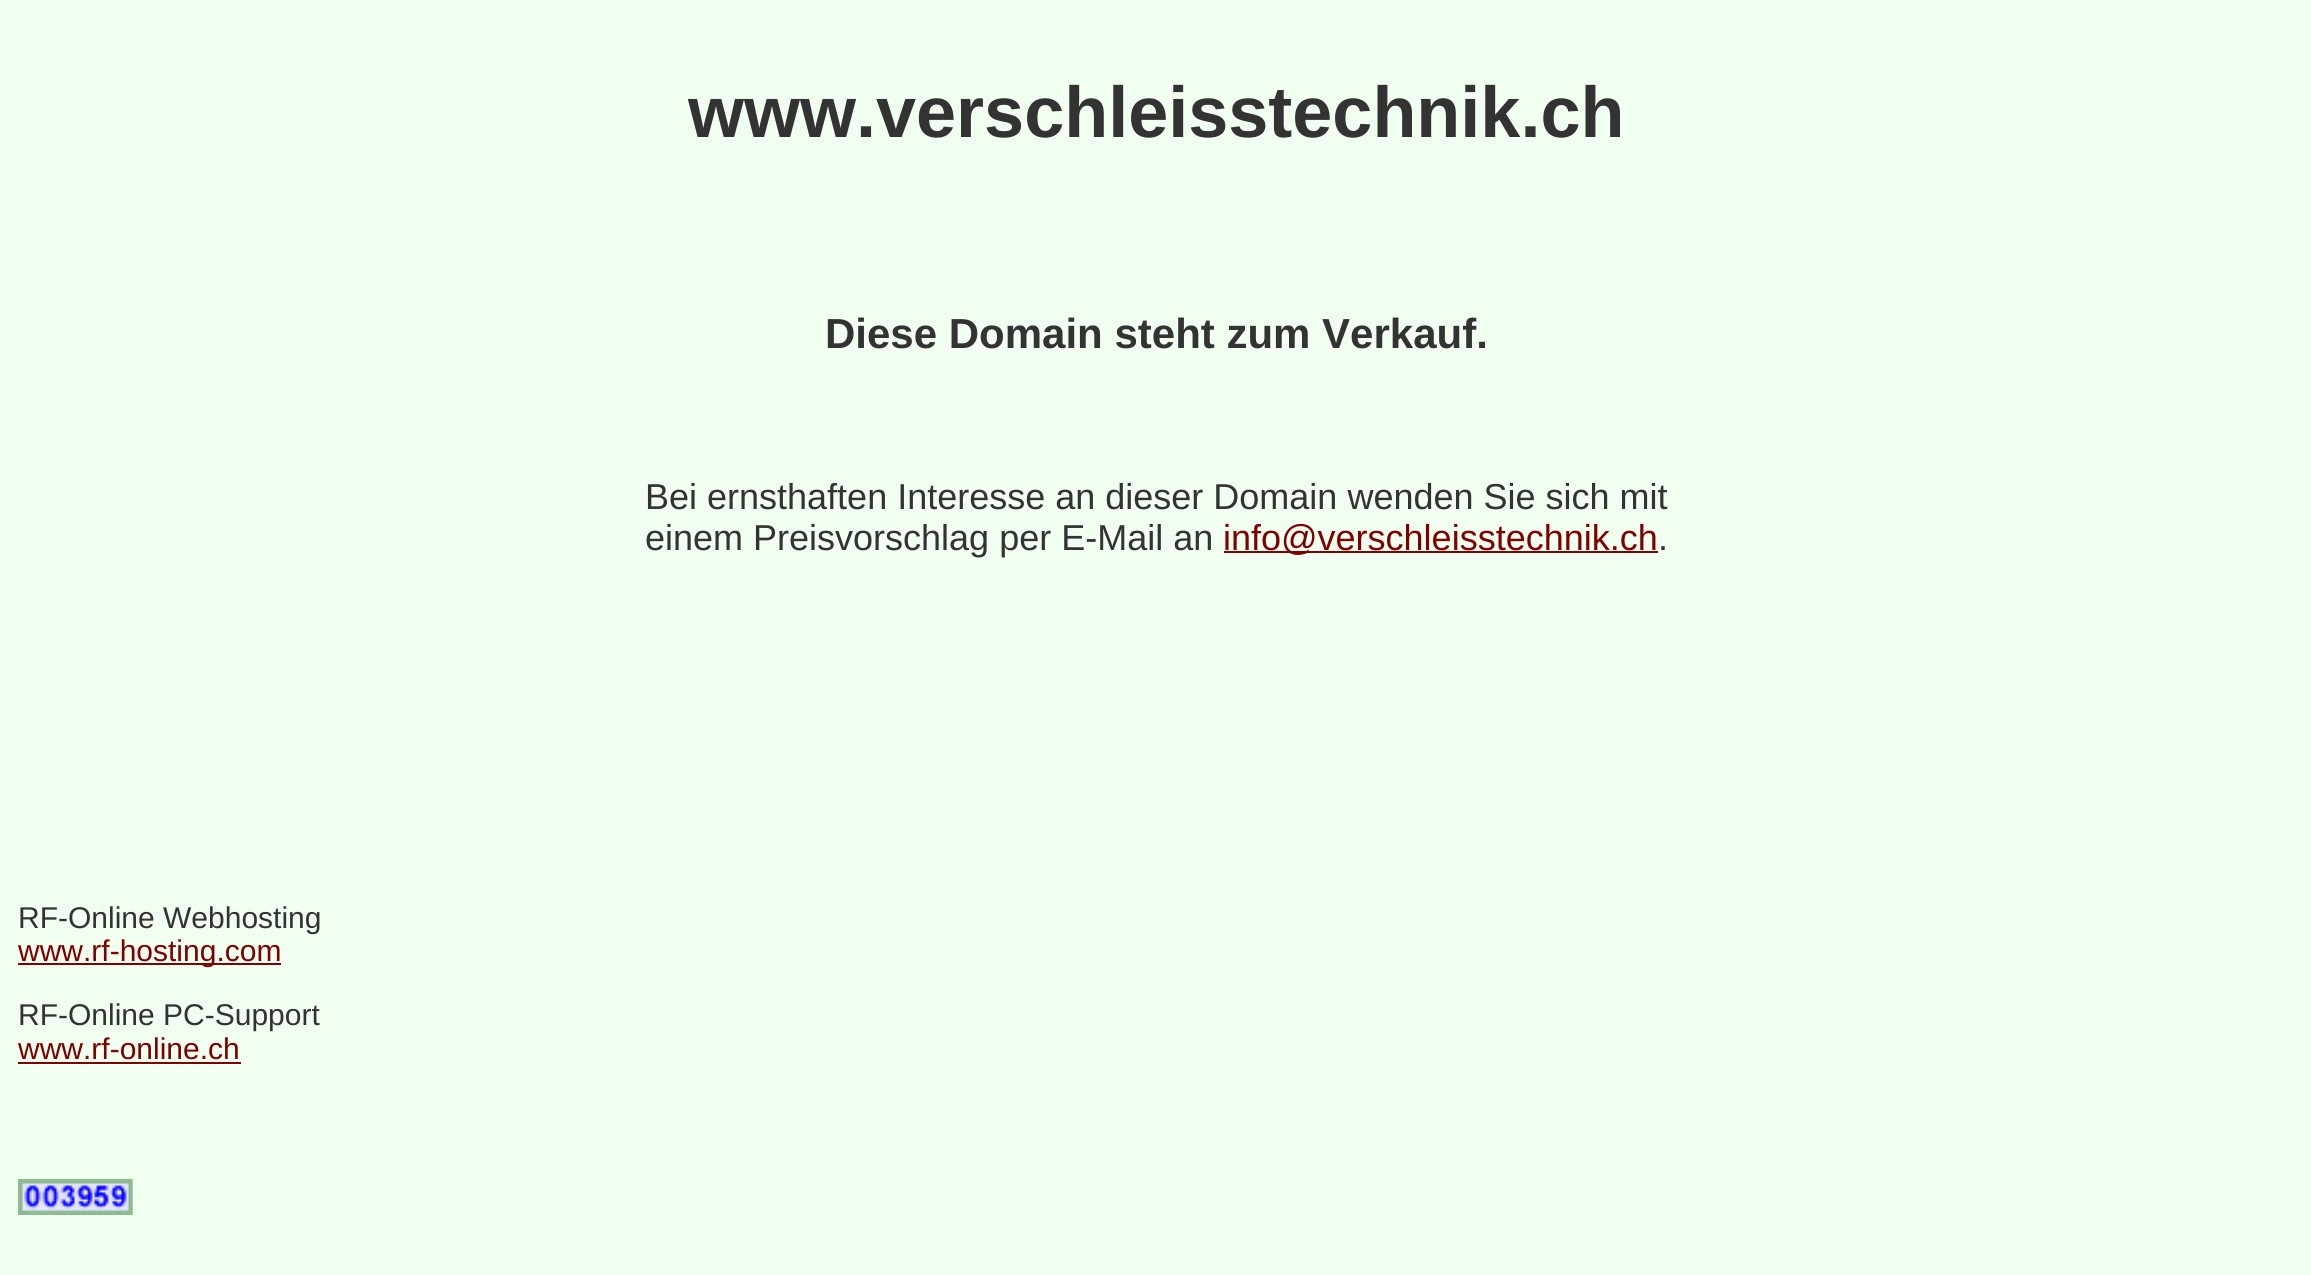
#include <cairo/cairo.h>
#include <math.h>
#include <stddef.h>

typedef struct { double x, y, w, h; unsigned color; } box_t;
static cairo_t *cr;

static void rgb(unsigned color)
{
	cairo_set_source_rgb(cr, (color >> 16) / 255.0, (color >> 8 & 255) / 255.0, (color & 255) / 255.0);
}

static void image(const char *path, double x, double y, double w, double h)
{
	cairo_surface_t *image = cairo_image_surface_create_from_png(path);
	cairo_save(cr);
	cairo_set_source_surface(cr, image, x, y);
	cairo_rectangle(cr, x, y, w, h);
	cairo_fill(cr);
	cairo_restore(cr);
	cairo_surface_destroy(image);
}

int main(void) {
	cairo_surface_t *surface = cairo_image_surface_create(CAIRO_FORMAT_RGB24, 2311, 1275);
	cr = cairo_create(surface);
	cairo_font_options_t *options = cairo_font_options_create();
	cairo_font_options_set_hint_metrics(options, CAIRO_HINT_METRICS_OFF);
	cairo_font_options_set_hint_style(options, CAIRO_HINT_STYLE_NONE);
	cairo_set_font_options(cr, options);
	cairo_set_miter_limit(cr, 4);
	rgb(0xf0fff0);
	cairo_paint(cr);
	{
		static const box_t items[] = {
			{1224, 551, 434, 2, 0x800000},
			{18, 963, 263, 2, 0x800000},
			{18, 1062, 223, 2, 0x800000},
		};
		for (size_t i = 0; i < sizeof items / sizeof *items; i++) {
			rgb(items[i].color);
			cairo_rectangle(cr, items[i].x, items[i].y, items[i].w, items[i].h);
			cairo_fill(cr);
		}
	}
	image("img/1.png", 18, 1179, 115, 36);
	cairo_select_font_face(cr, "Liberation Sans", CAIRO_FONT_SLANT_NORMAL, CAIRO_FONT_WEIGHT_BOLD);
	cairo_set_font_size(cr, 72);
	rgb(0x333333);
	cairo_move_to(cr, 688, 137);
	cairo_show_text(cr, "www.verschleisstechnik.ch");
	cairo_set_font_size(cr, 42);
	cairo_move_to(cr, 825, 348);
	cairo_show_text(cr, "Diese Domain steht zum Verkauf.");
	cairo_select_font_face(cr, "Liberation Sans", CAIRO_FONT_SLANT_NORMAL, CAIRO_FONT_WEIGHT_NORMAL);
	cairo_set_font_size(cr, 36);
	cairo_move_to(cr, 645, 509);
	cairo_show_text(cr, "Bei ernsthaften Interesse an dieser Domain wenden Sie sich mit");
	cairo_move_to(cr, 645, 550);
	cairo_show_text(cr, "einem Preisvorschlag per E-Mail an");
	rgb(0x800000);
	cairo_move_to(cr, 1223, 550);
	cairo_show_text(cr, "info@verschleisstechnik.ch");
	rgb(0x333333);
	cairo_move_to(cr, 1658, 550);
	cairo_show_text(cr, ".");
	cairo_set_font_size(cr, 30);
	cairo_move_to(cr, 18, 928);
	cairo_show_text(cr, "RF-Online Webhosting");
	rgb(0x800000);
	cairo_move_to(cr, 18, 961);
	cairo_show_text(cr, "www.rf-hosting.com");
	rgb(0x333333);
	cairo_move_to(cr, 18, 1025);
	cairo_show_text(cr, "RF-Online PC-Support");
	rgb(0x800000);
	cairo_move_to(cr, 18, 1059);
	cairo_show_text(cr, "www.rf-online.ch");
	cairo_surface_write_to_png(surface, "page.png");
	cairo_font_options_destroy(options);
	cairo_destroy(cr);
	cairo_surface_destroy(surface);
	return 0;
}
